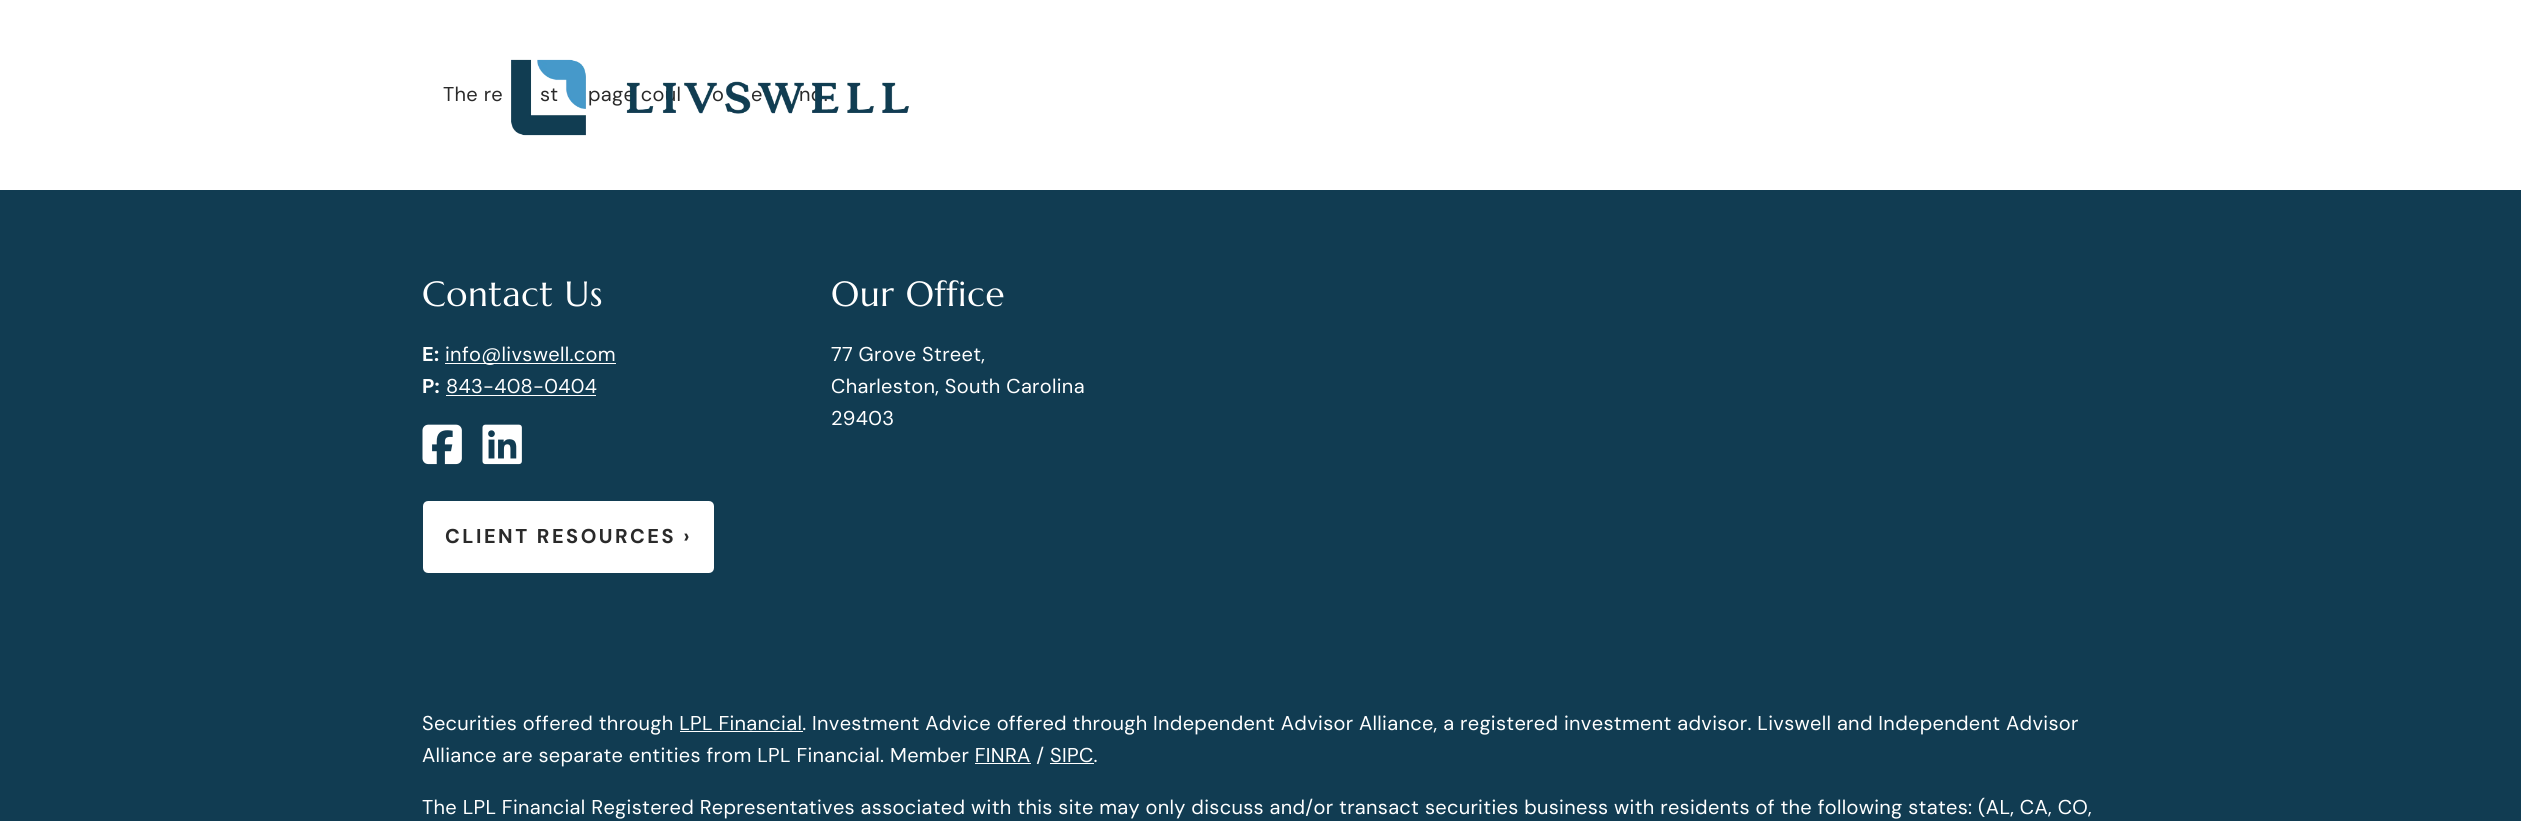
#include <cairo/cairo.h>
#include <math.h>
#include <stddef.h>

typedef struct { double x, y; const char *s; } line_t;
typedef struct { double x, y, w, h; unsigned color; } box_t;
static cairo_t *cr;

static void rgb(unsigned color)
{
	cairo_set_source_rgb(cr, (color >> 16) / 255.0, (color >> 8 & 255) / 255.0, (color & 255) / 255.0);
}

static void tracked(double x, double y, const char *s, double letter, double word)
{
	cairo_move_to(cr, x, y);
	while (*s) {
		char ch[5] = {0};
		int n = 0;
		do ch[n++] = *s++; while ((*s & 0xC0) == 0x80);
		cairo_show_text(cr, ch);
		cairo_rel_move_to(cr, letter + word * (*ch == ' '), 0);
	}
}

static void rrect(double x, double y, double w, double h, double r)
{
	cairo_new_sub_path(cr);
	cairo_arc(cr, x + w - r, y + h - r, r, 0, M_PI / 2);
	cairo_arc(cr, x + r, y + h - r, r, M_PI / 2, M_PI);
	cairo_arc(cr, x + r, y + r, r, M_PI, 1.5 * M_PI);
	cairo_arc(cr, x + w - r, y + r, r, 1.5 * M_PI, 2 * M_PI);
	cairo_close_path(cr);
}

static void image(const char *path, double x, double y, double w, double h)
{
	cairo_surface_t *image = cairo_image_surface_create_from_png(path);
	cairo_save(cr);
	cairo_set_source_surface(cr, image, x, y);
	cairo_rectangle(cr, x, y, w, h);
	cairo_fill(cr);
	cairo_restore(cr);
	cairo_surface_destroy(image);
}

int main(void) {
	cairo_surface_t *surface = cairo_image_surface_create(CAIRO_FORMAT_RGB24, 2521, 821);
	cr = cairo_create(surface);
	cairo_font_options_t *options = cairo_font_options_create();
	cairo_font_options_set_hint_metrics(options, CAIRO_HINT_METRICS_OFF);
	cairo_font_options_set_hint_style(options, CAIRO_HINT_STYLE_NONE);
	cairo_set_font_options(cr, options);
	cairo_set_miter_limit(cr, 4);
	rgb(0xffffff);
	cairo_paint(cr);
	{
		static const box_t items[] = {
			{0, 190, 2521, 631, 0x113c52},
			{445, 363, 171, 1, 0xffffff},
			{446, 395, 150, 1, 0xffffff},
		};
		for (size_t i = 0; i < sizeof items / sizeof *items; i++) {
			rgb(items[i].color);
			cairo_rectangle(cr, items[i].x, items[i].y, items[i].w, items[i].h);
			cairo_fill(cr);
		}
	}
	image("img/2.png", 422, 424, 40, 41);
	image("img/3.png", 482, 424, 40, 41);
	rrect(424.5, 502.5, 288, 69, 3.5);
	cairo_fill_preserve(cr);
	cairo_set_line_width(cr, 3);
	cairo_stroke(cr);
	{
		static const box_t items[] = {
			{680, 731, 123, 1, 0xffffff},
			{975, 763, 56, 1, 0xffffff},
			{1050, 763, 44, 1, 0xffffff},
		};
		for (size_t i = 0; i < sizeof items / sizeof *items; i++) {
			rgb(items[i].color);
			cairo_rectangle(cr, items[i].x, items[i].y, items[i].w, items[i].h);
			cairo_fill(cr);
		}
	}
	cairo_select_font_face(cr, "DM Sans", CAIRO_FONT_SLANT_NORMAL, CAIRO_FONT_WEIGHT_NORMAL);
	cairo_set_font_size(cr, 20);
	rgb(0x2a2a2a);
	{
		static const line_t items[] = {
			{443, 101, "The re"},
			{540, 101, "st"},
			{588, 101, "page coul"},
			{712, 101, "o"},
			{751, 101, "e"},
			{799, 101, "nd."},
		};
		for (size_t i = 0; i < sizeof items / sizeof *items; i++) {
			tracked(items[i].x, items[i].y, items[i].s, 0.31, 0);
		}
	}
	image("img/1.png", 511, 59, 398, 77);
	cairo_select_font_face(cr, "Marcellus", CAIRO_FONT_SLANT_NORMAL, CAIRO_FONT_WEIGHT_NORMAL);
	cairo_set_font_size(cr, 35);
	rgb(0xffffff);
	tracked(422, 306, "Contact Us", 0.6, 0);
	cairo_select_font_face(cr, "DM Sans", CAIRO_FONT_SLANT_NORMAL, CAIRO_FONT_WEIGHT_BOLD);
	cairo_set_font_size(cr, 20);
	tracked(422, 361, "E:", 0.31, 0);
	cairo_select_font_face(cr, "DM Sans", CAIRO_FONT_SLANT_NORMAL, CAIRO_FONT_WEIGHT_NORMAL);
	tracked(445, 361, "info@livswell.com", 0.31, 0);
	cairo_select_font_face(cr, "DM Sans", CAIRO_FONT_SLANT_NORMAL, CAIRO_FONT_WEIGHT_BOLD);
	tracked(422, 393, "P:", 0.31, 0);
	cairo_select_font_face(cr, "DM Sans", CAIRO_FONT_SLANT_NORMAL, CAIRO_FONT_WEIGHT_NORMAL);
	tracked(446, 393, "843-408-0404", 0.31, 0);
	cairo_select_font_face(cr, "DM Sans", CAIRO_FONT_SLANT_NORMAL, CAIRO_FONT_WEIGHT_BOLD);
	rgb(0x2a2a2a);
	tracked(445, 543, "CLIENT RESOURCES ›", 2.5, 0);
	cairo_select_font_face(cr, "Marcellus", CAIRO_FONT_SLANT_NORMAL, CAIRO_FONT_WEIGHT_NORMAL);
	cairo_set_font_size(cr, 35);
	rgb(0xffffff);
	tracked(831, 306, "Our Office", 0.6, 0);
	cairo_select_font_face(cr, "DM Sans", CAIRO_FONT_SLANT_NORMAL, CAIRO_FONT_WEIGHT_NORMAL);
	cairo_set_font_size(cr, 20);
	{
		static const line_t items[] = {
			{831, 361, "77 Grove Street,"},
			{831, 393, "Charleston, South Carolina"},
			{831, 425, "29403"},
			{422, 730, "Securities offered through LPL Financial. Investment Advice offered through Independent Advisor Alliance, a registered investment advisor. Livswell and Independent Advisor"},
			{422, 762, "Alliance are separate entities from LPL Financial. Member FINRA / SIPC."},
			{422, 814, "The LPL Financial Registered Representatives associated with this site may only discuss and/or transact securities business with residents of the following states: (AL, CA, CO,"},
		};
		for (size_t i = 0; i < sizeof items / sizeof *items; i++) {
			tracked(items[i].x, items[i].y, items[i].s, 0.31, 0);
		}
	}
	cairo_surface_write_to_png(surface, "page.png");
	cairo_font_options_destroy(options);
	cairo_destroy(cr);
	cairo_surface_destroy(surface);
	return 0;
}
